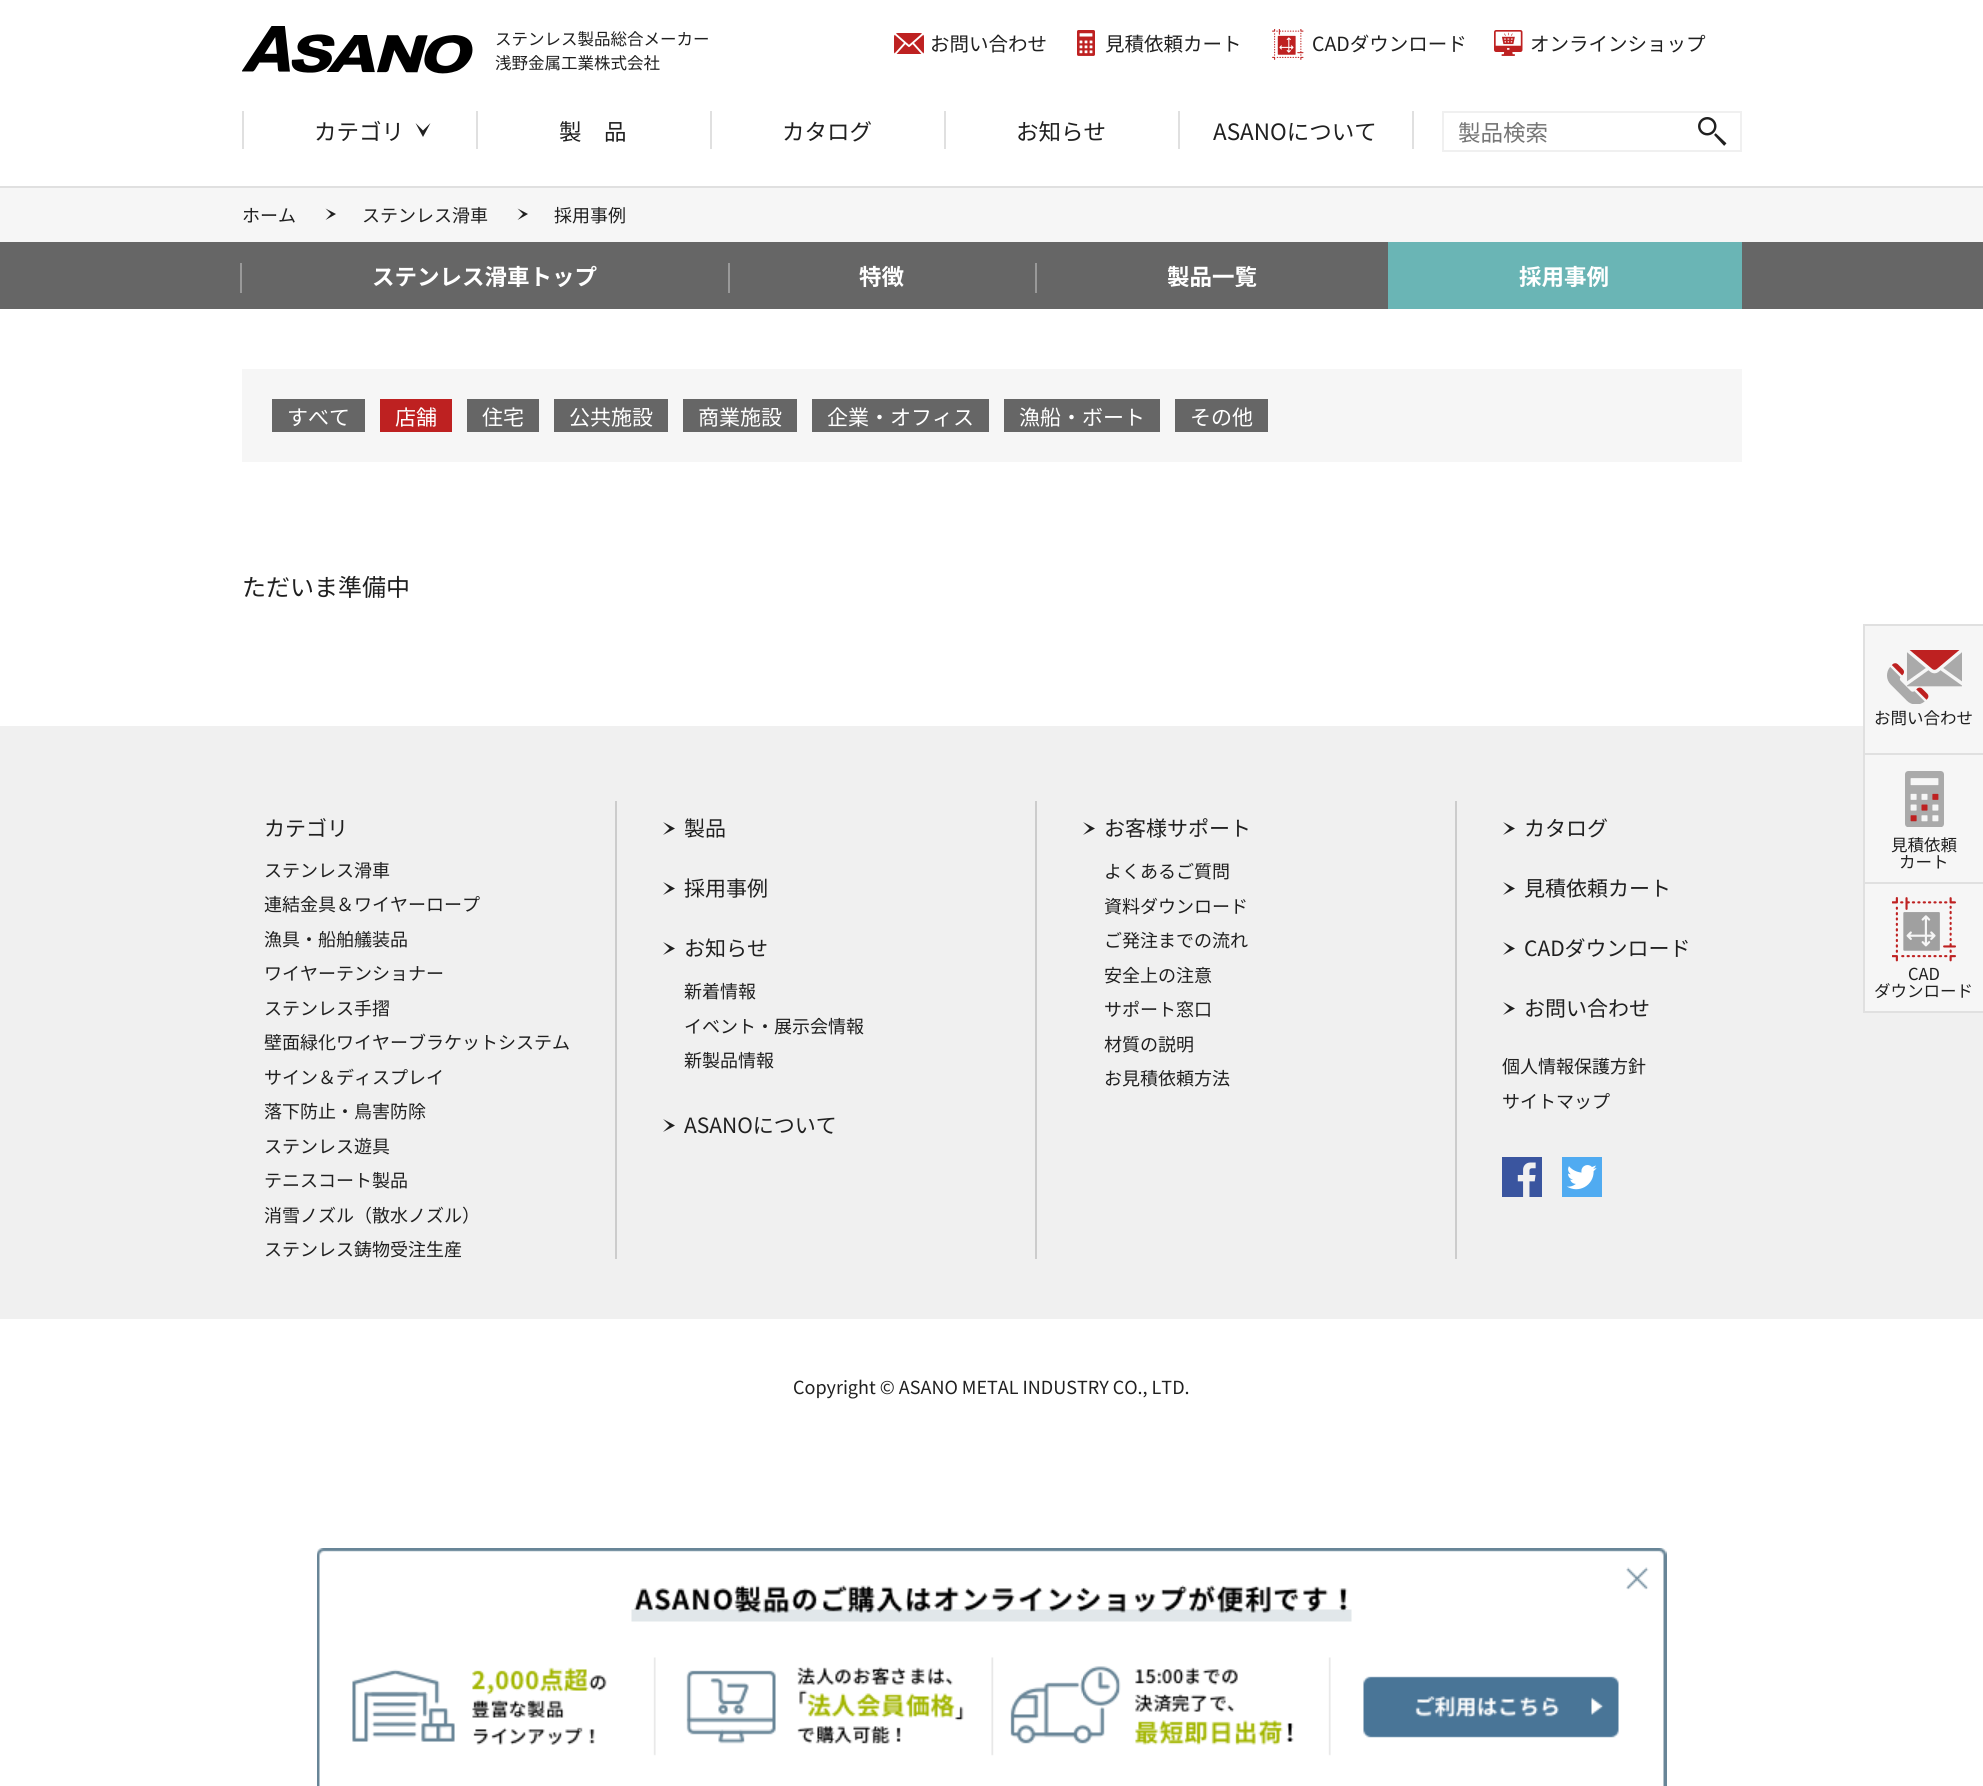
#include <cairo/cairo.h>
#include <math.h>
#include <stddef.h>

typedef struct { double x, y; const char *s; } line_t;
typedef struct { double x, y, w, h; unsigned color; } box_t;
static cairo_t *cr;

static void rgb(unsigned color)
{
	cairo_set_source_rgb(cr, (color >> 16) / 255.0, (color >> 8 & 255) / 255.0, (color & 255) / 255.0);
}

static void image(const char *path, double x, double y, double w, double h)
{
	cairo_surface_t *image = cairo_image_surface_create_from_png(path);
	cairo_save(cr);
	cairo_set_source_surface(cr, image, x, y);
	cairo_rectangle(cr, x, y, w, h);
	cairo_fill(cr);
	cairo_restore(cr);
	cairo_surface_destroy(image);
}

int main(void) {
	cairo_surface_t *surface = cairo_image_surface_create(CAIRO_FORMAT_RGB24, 1983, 1786);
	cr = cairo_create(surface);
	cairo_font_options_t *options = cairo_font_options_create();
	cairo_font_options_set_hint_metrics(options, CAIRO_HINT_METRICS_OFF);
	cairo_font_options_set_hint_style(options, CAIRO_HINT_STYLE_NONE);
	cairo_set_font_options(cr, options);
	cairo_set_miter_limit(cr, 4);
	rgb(0xffffff);
	cairo_paint(cr);
	image("img/1.png", 242, 26, 231, 48);
	image("img/2.png", 894, 33, 30, 21);
	image("img/3.png", 1077, 30, 18, 26);
	image("img/4.png", 1272, 29, 32, 31);
	image("img/5.png", 1494, 30, 29, 26);
	rgb(0xe0e0e0);
	cairo_rectangle(cr, 242, 111, 2, 38);
	cairo_fill(cr);
	cairo_rectangle(cr, 476, 111, 2, 38);
	cairo_fill(cr);
	rgb(0x202020);
	cairo_new_path(cr);
	cairo_move_to(cr, 415.5, 123);
	cairo_line_to(cr, 423, 130.5);
	cairo_line_to(cr, 430.5, 123);
	cairo_line_to(cr, 423, 137);
	cairo_close_path(cr);
	cairo_fill(cr);
	{
		static const box_t items[] = {
			{710, 111, 2, 38, 0xe0e0e0},
			{944, 111, 2, 38, 0xe0e0e0},
			{1178, 111, 2, 38, 0xe0e0e0},
			{1412, 111, 2, 38, 0xe0e0e0},
		};
		for (size_t i = 0; i < sizeof items / sizeof *items; i++) {
			rgb(items[i].color);
			cairo_rectangle(cr, items[i].x, items[i].y, items[i].w, items[i].h);
			cairo_fill(cr);
		}
	}
	image("img/6.png", 1698, 117, 29, 29);
	cairo_rectangle(cr, 1443, 112, 298, 39);
	rgb(0xf0f0f0);
	cairo_stroke(cr);
	{
		static const box_t items[] = {
			{1863, 624, 120, 2, 0xe0e0e0},
			{0, 726, 1983, 593, 0xf0f0f0},
			{1865, 626, 118, 127, 0xf6f6f6},
			{1863, 753, 120, 2, 0xe0e0e0},
			{1863, 626, 2, 129, 0xe0e0e0},
		};
		for (size_t i = 0; i < sizeof items / sizeof *items; i++) {
			rgb(items[i].color);
			cairo_rectangle(cr, items[i].x, items[i].y, items[i].w, items[i].h);
			cairo_fill(cr);
		}
	}
	image("img/7.png", 1887, 650, 75, 54);
	{
		static const box_t items[] = {
			{1865, 755, 118, 127, 0xf6f6f6},
			{1863, 882, 120, 2, 0xe0e0e0},
			{1863, 755, 2, 129, 0xe0e0e0},
		};
		for (size_t i = 0; i < sizeof items / sizeof *items; i++) {
			rgb(items[i].color);
			cairo_rectangle(cr, items[i].x, items[i].y, items[i].w, items[i].h);
			cairo_fill(cr);
		}
	}
	image("img/8.png", 1905, 771, 39, 56);
	{
		static const box_t items[] = {
			{1865, 884, 118, 127, 0xf6f6f6},
			{1863, 1011, 120, 2, 0xe0e0e0},
			{1863, 884, 2, 129, 0xe0e0e0},
		};
		for (size_t i = 0; i < sizeof items / sizeof *items; i++) {
			rgb(items[i].color);
			cairo_rectangle(cr, items[i].x, items[i].y, items[i].w, items[i].h);
			cairo_fill(cr);
		}
	}
	image("img/9.png", 1892, 897, 64, 65);
	rgb(0xf6f6f6);
	cairo_rectangle(cr, 0, 188, 1983, 54);
	cairo_fill(cr);
	rgb(0xe0e0e0);
	cairo_rectangle(cr, 0, 186, 1983, 2);
	cairo_fill(cr);
	rgb(0x202020);
	cairo_new_path(cr);
	cairo_move_to(cr, 325.5, 220);
	cairo_line_to(cr, 331, 214);
	cairo_line_to(cr, 325.5, 208.5);
	cairo_line_to(cr, 336, 214);
	cairo_close_path(cr);
	cairo_fill(cr);
	cairo_new_path(cr);
	cairo_move_to(cr, 517.5, 220);
	cairo_line_to(cr, 523, 214);
	cairo_line_to(cr, 517.5, 208.5);
	cairo_line_to(cr, 528, 214);
	cairo_close_path(cr);
	cairo_fill(cr);
	{
		static const box_t items[] = {
			{0, 242, 1983, 67, 0x666666},
			{240, 263, 2, 30, 0x999999},
			{728, 263, 2, 30, 0x999999},
			{1035, 263, 2, 30, 0x999999},
			{1388, 242, 354, 67, 0x6ab5b5},
			{242, 369, 1500, 93, 0xf6f6f6},
			{272, 399, 93, 33, 0x666666},
			{380, 399, 72, 33, 0xbe2121},
			{467, 399, 72, 33, 0x666666},
			{554, 399, 114, 33, 0x666666},
			{683, 399, 114, 33, 0x666666},
			{812, 399, 177, 33, 0x666666},
			{1004, 399, 156, 33, 0x666666},
			{1175, 399, 93, 33, 0x666666},
			{615, 801, 2, 458, 0xcccccc},
			{1035, 801, 2, 458, 0xcccccc},
		};
		for (size_t i = 0; i < sizeof items / sizeof *items; i++) {
			rgb(items[i].color);
			cairo_rectangle(cr, items[i].x, items[i].y, items[i].w, items[i].h);
			cairo_fill(cr);
		}
	}
	rgb(0x202020);
	cairo_new_path(cr);
	cairo_move_to(cr, 663, 835);
	cairo_line_to(cr, 669.5, 828.5);
	cairo_line_to(cr, 663, 822);
	cairo_line_to(cr, 675, 828.5);
	cairo_close_path(cr);
	cairo_fill(cr);
	cairo_new_path(cr);
	cairo_move_to(cr, 663, 895);
	cairo_line_to(cr, 669.5, 888.5);
	cairo_line_to(cr, 663, 882);
	cairo_line_to(cr, 675, 888.5);
	cairo_close_path(cr);
	cairo_fill(cr);
	cairo_new_path(cr);
	cairo_move_to(cr, 663, 955);
	cairo_line_to(cr, 669.5, 948.5);
	cairo_line_to(cr, 663, 942);
	cairo_line_to(cr, 675, 948.5);
	cairo_close_path(cr);
	cairo_fill(cr);
	cairo_new_path(cr);
	cairo_move_to(cr, 663, 1132);
	cairo_line_to(cr, 669.5, 1125.5);
	cairo_line_to(cr, 663, 1119);
	cairo_line_to(cr, 675, 1125.5);
	cairo_close_path(cr);
	cairo_fill(cr);
	rgb(0xcccccc);
	cairo_rectangle(cr, 1455, 801, 2, 458);
	cairo_fill(cr);
	rgb(0x202020);
	cairo_new_path(cr);
	cairo_move_to(cr, 1083, 835);
	cairo_line_to(cr, 1089.5, 828.5);
	cairo_line_to(cr, 1083, 822);
	cairo_line_to(cr, 1095, 828.5);
	cairo_close_path(cr);
	cairo_fill(cr);
	cairo_new_path(cr);
	cairo_move_to(cr, 1503, 835);
	cairo_line_to(cr, 1509.5, 828.5);
	cairo_line_to(cr, 1503, 822);
	cairo_line_to(cr, 1515, 828.5);
	cairo_close_path(cr);
	cairo_fill(cr);
	cairo_new_path(cr);
	cairo_move_to(cr, 1503, 895);
	cairo_line_to(cr, 1509.5, 888.5);
	cairo_line_to(cr, 1503, 882);
	cairo_line_to(cr, 1515, 888.5);
	cairo_close_path(cr);
	cairo_fill(cr);
	cairo_new_path(cr);
	cairo_move_to(cr, 1503, 955);
	cairo_line_to(cr, 1509.5, 948.5);
	cairo_line_to(cr, 1503, 942);
	cairo_line_to(cr, 1515, 948.5);
	cairo_close_path(cr);
	cairo_fill(cr);
	cairo_new_path(cr);
	cairo_move_to(cr, 1503, 1015);
	cairo_line_to(cr, 1509.5, 1008.5);
	cairo_line_to(cr, 1503, 1002);
	cairo_line_to(cr, 1515, 1008.5);
	cairo_close_path(cr);
	cairo_fill(cr);
	image("img/10.png", 1502, 1157, 40, 40);
	image("img/11.png", 1562, 1157, 40, 40);
	image("img/12.png", 317, 1548, 1350, 238);
	image("img/13.png", 1626, 1567, 23, 23);
	cairo_select_font_face(cr, "Noto Sans JP", CAIRO_FONT_SLANT_NORMAL, CAIRO_FONT_WEIGHT_NORMAL);
	cairo_set_font_size(cr, 16.5);
	cairo_move_to(cr, 495, 45);
	cairo_show_text(cr, "ステンレス製品総合メーカー");
	cairo_move_to(cr, 495, 69);
	cairo_show_text(cr, "浅野金属工業株式会社");
	cairo_set_font_size(cr, 19.5);
	{
		static const line_t items[] = {
			{930, 51, "お問い合わせ"},
			{1105, 51, "見積依頼カート"},
			{1312, 51, "CADダウンロード"},
			{1530, 51, "オンラインショップ"},
		};
		for (size_t i = 0; i < sizeof items / sizeof *items; i++) {
			cairo_move_to(cr, items[i].x, items[i].y);
			cairo_show_text(cr, items[i].s);
		}
	}
	cairo_set_font_size(cr, 22.5);
	{
		static const line_t items[] = {
			{314, 140, "カテゴリ"},
			{559, 140, "製　品"},
			{782, 140, "カタログ"},
			{1016, 140, "お知らせ"},
			{1213, 140, "ASANOについて"},
		};
		for (size_t i = 0; i < sizeof items / sizeof *items; i++) {
			cairo_move_to(cr, items[i].x, items[i].y);
			cairo_show_text(cr, items[i].s);
		}
	}
	rgb(0x757575);
	cairo_move_to(cr, 1458, 141);
	cairo_show_text(cr, "製品検索");
	cairo_set_font_size(cr, 16.5);
	rgb(0x202020);
	{
		static const line_t items[] = {
			{1874, 724, "お問い合わせ"},
			{1891, 851, "見積依頼"},
			{1899, 868, "カート"},
			{1908, 980, "CAD"},
			{1874, 997, "ダウンロード"},
		};
		for (size_t i = 0; i < sizeof items / sizeof *items; i++) {
			cairo_move_to(cr, items[i].x, items[i].y);
			cairo_show_text(cr, items[i].s);
		}
	}
	cairo_set_font_size(cr, 18);
	{
		static const line_t items[] = {
			{242, 222, "ホーム"},
			{362, 222, "ステンレス滑車"},
			{554, 222, "採用事例"},
		};
		for (size_t i = 0; i < sizeof items / sizeof *items; i++) {
			cairo_move_to(cr, items[i].x, items[i].y);
			cairo_show_text(cr, items[i].s);
		}
	}
	cairo_select_font_face(cr, "Noto Sans JP", CAIRO_FONT_SLANT_NORMAL, CAIRO_FONT_WEIGHT_BOLD);
	cairo_set_font_size(cr, 22.5);
	rgb(0xffffff);
	{
		static const line_t items[] = {
			{372, 285, "ステンレス滑車トップ"},
			{859, 285, "特徴"},
			{1167, 285, "製品一覧"},
			{1519, 285, "採用事例"},
		};
		for (size_t i = 0; i < sizeof items / sizeof *items; i++) {
			cairo_move_to(cr, items[i].x, items[i].y);
			cairo_show_text(cr, items[i].s);
		}
	}
	cairo_select_font_face(cr, "Noto Sans JP", CAIRO_FONT_SLANT_NORMAL, CAIRO_FONT_WEIGHT_NORMAL);
	cairo_set_font_size(cr, 21);
	{
		static const line_t items[] = {
			{287, 425, "すべて"},
			{395, 425, "店舗"},
			{482, 425, "住宅"},
			{569, 425, "公共施設"},
			{698, 425, "商業施設"},
			{827, 425, "企業・オフィス"},
			{1019, 425, "漁船・ボート"},
			{1190, 425, "その他"},
		};
		for (size_t i = 0; i < sizeof items / sizeof *items; i++) {
			cairo_move_to(cr, items[i].x, items[i].y);
			cairo_show_text(cr, items[i].s);
		}
	}
	cairo_set_font_size(cr, 24);
	rgb(0x202020);
	cairo_move_to(cr, 242, 596);
	cairo_show_text(cr, "ただいま準備中");
	cairo_set_font_size(cr, 21);
	cairo_move_to(cr, 264, 836);
	cairo_show_text(cr, "カテゴリ");
	cairo_set_font_size(cr, 18);
	{
		static const line_t items[] = {
			{264, 877, "ステンレス滑車"},
			{264, 911, "連結金具＆ワイヤーロープ"},
			{264, 946, "漁具・船舶艤装品"},
			{264, 980, "ワイヤーテンショナー"},
			{264, 1015, "ステンレス手摺"},
			{264, 1049, "壁面緑化ワイヤーブラケットシステム"},
			{264, 1084, "サイン＆ディスプレイ"},
			{264, 1118, "落下防止・鳥害防除"},
			{264, 1153, "ステンレス遊具"},
			{264, 1187, "テニスコート製品"},
			{264, 1222, "消雪ノズル（散水ノズル）"},
			{264, 1256, "ステンレス鋳物受注生産"},
		};
		for (size_t i = 0; i < sizeof items / sizeof *items; i++) {
			cairo_move_to(cr, items[i].x, items[i].y);
			cairo_show_text(cr, items[i].s);
		}
	}
	cairo_set_font_size(cr, 21);
	{
		static const line_t items[] = {
			{684, 836, "製品"},
			{684, 896, "採用事例"},
			{684, 956, "お知らせ"},
		};
		for (size_t i = 0; i < sizeof items / sizeof *items; i++) {
			cairo_move_to(cr, items[i].x, items[i].y);
			cairo_show_text(cr, items[i].s);
		}
	}
	cairo_set_font_size(cr, 18);
	{
		static const line_t items[] = {
			{684, 998, "新着情報"},
			{684, 1033, "イベント・展示会情報"},
			{684, 1067, "新製品情報"},
		};
		for (size_t i = 0; i < sizeof items / sizeof *items; i++) {
			cairo_move_to(cr, items[i].x, items[i].y);
			cairo_show_text(cr, items[i].s);
		}
	}
	cairo_set_font_size(cr, 21);
	cairo_move_to(cr, 684, 1133);
	cairo_show_text(cr, "ASANOについて");
	cairo_move_to(cr, 1104, 836);
	cairo_show_text(cr, "お客様サポート");
	cairo_set_font_size(cr, 18);
	{
		static const line_t items[] = {
			{1104, 878, "よくあるご質問"},
			{1104, 913, "資料ダウンロード"},
			{1104, 947, "ご発注までの流れ"},
			{1104, 982, "安全上の注意"},
			{1104, 1016, "サポート窓口"},
			{1104, 1051, "材質の説明"},
			{1104, 1085, "お見積依頼方法"},
		};
		for (size_t i = 0; i < sizeof items / sizeof *items; i++) {
			cairo_move_to(cr, items[i].x, items[i].y);
			cairo_show_text(cr, items[i].s);
		}
	}
	cairo_set_font_size(cr, 21);
	{
		static const line_t items[] = {
			{1524, 836, "カタログ"},
			{1524, 896, "見積依頼カート"},
			{1524, 956, "CADダウンロード"},
			{1524, 1016, "お問い合わせ"},
		};
		for (size_t i = 0; i < sizeof items / sizeof *items; i++) {
			cairo_move_to(cr, items[i].x, items[i].y);
			cairo_show_text(cr, items[i].s);
		}
	}
	cairo_set_font_size(cr, 18);
	{
		static const line_t items[] = {
			{1502, 1073, "個人情報保護方針"},
			{1502, 1108, "サイトマップ"},
			{793, 1394, "Copyright © ASANO METAL INDUSTRY CO., LTD."},
		};
		for (size_t i = 0; i < sizeof items / sizeof *items; i++) {
			cairo_move_to(cr, items[i].x, items[i].y);
			cairo_show_text(cr, items[i].s);
		}
	}
	cairo_surface_write_to_png(surface, "page.png");
	cairo_font_options_destroy(options);
	cairo_destroy(cr);
	cairo_surface_destroy(surface);
	return 0;
}
